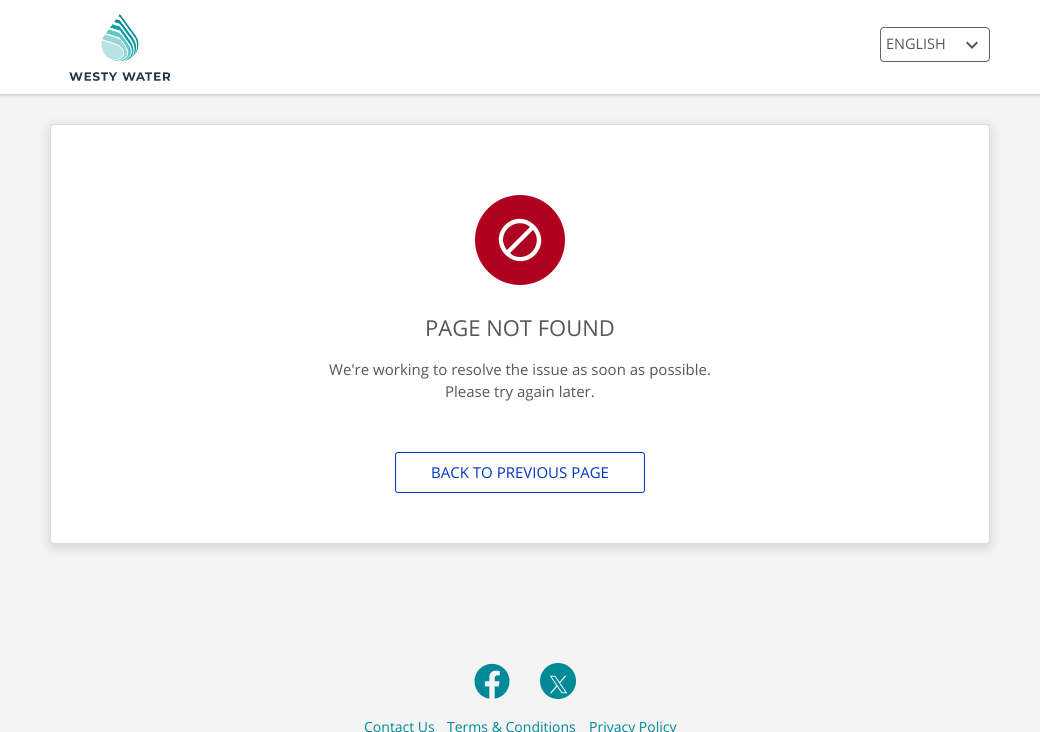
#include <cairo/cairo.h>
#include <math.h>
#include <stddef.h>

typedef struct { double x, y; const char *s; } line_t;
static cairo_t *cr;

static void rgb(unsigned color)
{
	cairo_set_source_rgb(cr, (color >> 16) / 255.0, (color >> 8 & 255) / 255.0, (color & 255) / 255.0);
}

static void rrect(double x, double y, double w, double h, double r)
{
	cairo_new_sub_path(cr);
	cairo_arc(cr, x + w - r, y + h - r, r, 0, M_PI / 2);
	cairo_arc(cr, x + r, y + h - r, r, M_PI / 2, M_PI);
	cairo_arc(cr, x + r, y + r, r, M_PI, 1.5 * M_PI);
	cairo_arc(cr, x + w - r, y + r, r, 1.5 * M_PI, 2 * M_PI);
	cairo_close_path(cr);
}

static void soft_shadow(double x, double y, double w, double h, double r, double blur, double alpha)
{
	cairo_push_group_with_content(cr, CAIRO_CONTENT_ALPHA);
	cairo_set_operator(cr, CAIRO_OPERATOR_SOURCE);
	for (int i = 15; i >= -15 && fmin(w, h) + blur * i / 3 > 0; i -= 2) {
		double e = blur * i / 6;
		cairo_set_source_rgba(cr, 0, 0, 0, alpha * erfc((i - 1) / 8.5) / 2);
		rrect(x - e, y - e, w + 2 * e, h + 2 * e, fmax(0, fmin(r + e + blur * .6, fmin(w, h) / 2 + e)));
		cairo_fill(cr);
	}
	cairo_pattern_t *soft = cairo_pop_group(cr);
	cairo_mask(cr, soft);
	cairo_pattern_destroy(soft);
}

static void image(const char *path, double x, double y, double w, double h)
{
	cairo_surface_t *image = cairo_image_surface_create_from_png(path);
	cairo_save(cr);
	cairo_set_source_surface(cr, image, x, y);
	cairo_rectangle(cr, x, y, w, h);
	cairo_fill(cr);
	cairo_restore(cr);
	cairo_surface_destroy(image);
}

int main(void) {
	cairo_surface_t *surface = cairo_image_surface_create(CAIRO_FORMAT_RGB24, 1040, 732);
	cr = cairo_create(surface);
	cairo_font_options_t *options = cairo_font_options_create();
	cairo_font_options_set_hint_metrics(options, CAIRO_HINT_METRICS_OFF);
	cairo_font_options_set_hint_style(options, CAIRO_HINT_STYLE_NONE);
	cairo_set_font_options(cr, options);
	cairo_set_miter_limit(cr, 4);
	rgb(0xf4f4f4);
	cairo_paint(cr);
	rgb(0x9c9c9c);
	soft_shadow(0, 0, 1040, 94, 0, 2, 1);
	rgb(0xffffff);
	cairo_rectangle(cr, 0, 0, 1040, 94);
	cairo_fill(cr);
	image("img/1.png", 69, 14, 101, 67);
	rrect(880.5, 27.5, 109, 34, 3.5);
	rgb(0x666366);
	cairo_set_line_width(cr, 1);
	cairo_stroke(cr);
	image("img/2.png", 966, 41, 12, 8);
	rgb(0x000000);
	soft_shadow(50, 127, 940, 420, 4, 6, 0.15);
	rgb(0xffffff);
	rrect(50.5, 124.5, 939, 419, 3.5);
	cairo_fill_preserve(cr);
	rgb(0xdcdcdc);
	cairo_stroke(cr);
	rgb(0xaf0220);
	cairo_arc(cr, 520, 240, 45, 0, 2 * M_PI);
	cairo_fill(cr);
	rgb(0xffffff);
	cairo_new_path(cr);
	cairo_move_to(cr, 520, 257);
	cairo_curve_to(cr, 534, 257, 542, 240, 533, 230);
	cairo_line_to(cr, 510, 253);
	cairo_curve_to(cr, 513, 256, 516, 257, 520, 257);
	cairo_close_path(cr);
	cairo_move_to(cr, 503, 240);
	cairo_curve_to(cr, 503, 243, 505, 248, 507, 250);
	cairo_line_to(cr, 530, 227);
	cairo_curve_to(cr, 520, 218, 503, 226, 503, 240);
	cairo_close_path(cr);
	cairo_move_to(cr, 505, 225);
	cairo_curve_to(cr, 525, 206, 554, 235, 535, 255);
	cairo_curve_to(cr, 515, 274, 486, 245, 505, 225);
	cairo_close_path(cr);
	cairo_fill(cr);
	rrect(395.5, 452.5, 249, 40, 2.5);
	rgb(0x0135c5);
	cairo_stroke(cr);
	image("img/3.png", 474, 663, 36, 36);
	rgb(0x008996);
	cairo_arc(cr, 558, 681, 18, 0, 2 * M_PI);
	cairo_fill(cr);
	image("img/4.png", 549, 675, 19, 19);
	cairo_select_font_face(cr, "Open Sans", CAIRO_FONT_SLANT_NORMAL, CAIRO_FONT_WEIGHT_NORMAL);
	cairo_set_font_size(cr, 14.5);
	rgb(0x555759);
	cairo_move_to(cr, 886, 49);
	cairo_show_text(cr, "ENGLISH");
	cairo_set_font_size(cr, 22);
	cairo_move_to(cr, 425, 336);
	cairo_show_text(cr, "PAGE NOT FOUND");
	cairo_set_font_size(cr, 15);
	cairo_move_to(cr, 329, 375);
	cairo_show_text(cr, "We're working to resolve the issue as soon as possible.");
	cairo_move_to(cr, 445, 397);
	cairo_show_text(cr, "Please try again later.");
	rgb(0x0135c5);
	cairo_move_to(cr, 431, 478);
	cairo_show_text(cr, "BACK TO PREVIOUS PAGE");
	cairo_set_font_size(cr, 14);
	rgb(0x008996);
	{
		static const line_t items[] = {
			{364, 732, "Contact Us"},
			{447, 732, "Terms & Conditions"},
			{589, 732, "Privacy Policy"},
		};
		for (size_t i = 0; i < sizeof items / sizeof *items; i++) {
			cairo_move_to(cr, items[i].x, items[i].y);
			cairo_show_text(cr, items[i].s);
		}
	}
	cairo_surface_write_to_png(surface, "page.png");
	cairo_font_options_destroy(options);
	cairo_destroy(cr);
	cairo_surface_destroy(surface);
	return 0;
}
